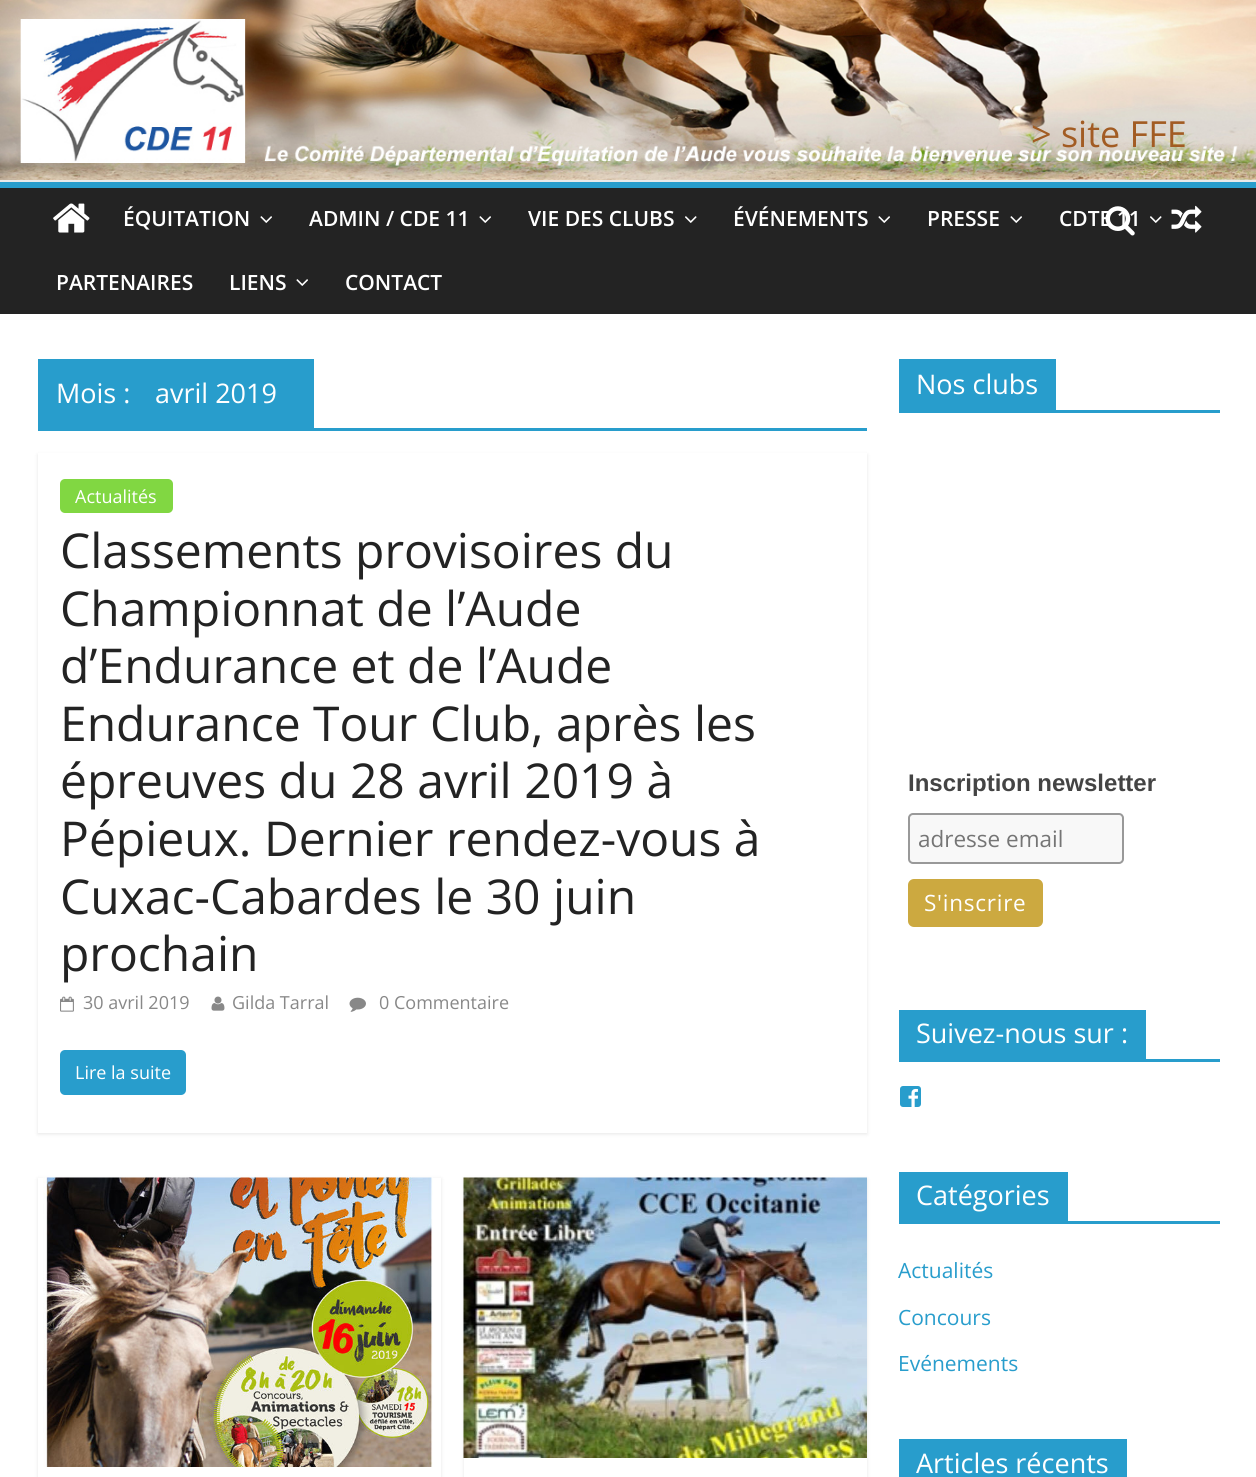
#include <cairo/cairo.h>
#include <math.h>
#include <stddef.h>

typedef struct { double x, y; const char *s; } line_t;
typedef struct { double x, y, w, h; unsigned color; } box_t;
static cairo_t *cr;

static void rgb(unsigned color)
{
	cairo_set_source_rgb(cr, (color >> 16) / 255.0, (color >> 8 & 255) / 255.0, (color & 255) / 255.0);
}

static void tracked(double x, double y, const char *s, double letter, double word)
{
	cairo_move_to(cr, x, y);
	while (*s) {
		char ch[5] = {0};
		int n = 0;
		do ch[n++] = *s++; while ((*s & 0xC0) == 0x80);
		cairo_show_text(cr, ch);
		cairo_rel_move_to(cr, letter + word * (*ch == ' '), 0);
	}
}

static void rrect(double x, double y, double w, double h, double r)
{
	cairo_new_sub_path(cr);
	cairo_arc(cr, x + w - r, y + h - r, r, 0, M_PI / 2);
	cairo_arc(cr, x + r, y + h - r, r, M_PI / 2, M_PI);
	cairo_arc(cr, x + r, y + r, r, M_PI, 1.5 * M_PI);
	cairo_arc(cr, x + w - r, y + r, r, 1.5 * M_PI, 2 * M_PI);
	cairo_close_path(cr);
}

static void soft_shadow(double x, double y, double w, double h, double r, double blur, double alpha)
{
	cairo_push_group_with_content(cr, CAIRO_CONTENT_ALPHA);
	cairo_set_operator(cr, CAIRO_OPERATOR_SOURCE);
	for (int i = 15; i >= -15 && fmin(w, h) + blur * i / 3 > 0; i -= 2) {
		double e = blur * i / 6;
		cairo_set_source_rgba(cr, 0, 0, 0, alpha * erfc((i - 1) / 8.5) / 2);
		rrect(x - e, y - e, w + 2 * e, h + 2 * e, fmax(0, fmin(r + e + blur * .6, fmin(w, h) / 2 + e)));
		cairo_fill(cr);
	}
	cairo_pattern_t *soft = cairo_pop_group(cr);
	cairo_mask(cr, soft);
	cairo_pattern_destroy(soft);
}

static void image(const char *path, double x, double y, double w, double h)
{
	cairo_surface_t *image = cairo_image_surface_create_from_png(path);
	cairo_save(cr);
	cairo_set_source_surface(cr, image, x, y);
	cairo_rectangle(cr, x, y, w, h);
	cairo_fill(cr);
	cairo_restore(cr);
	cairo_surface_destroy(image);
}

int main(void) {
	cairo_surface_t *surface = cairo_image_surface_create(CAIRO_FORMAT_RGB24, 1256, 1477);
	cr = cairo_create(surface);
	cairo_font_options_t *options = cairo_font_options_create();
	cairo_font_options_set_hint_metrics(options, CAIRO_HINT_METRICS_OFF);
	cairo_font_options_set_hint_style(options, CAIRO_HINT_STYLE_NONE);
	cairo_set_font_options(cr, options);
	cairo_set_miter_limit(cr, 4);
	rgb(0xffffff);
	cairo_paint(cr);
	rgb(0x289dcc);
	cairo_rectangle(cr, 38, 428, 829, 3);
	cairo_fill(cr);
	cairo_rectangle(cr, 38, 359, 276, 69);
	cairo_fill(cr);
	cairo_save(cr);
	cairo_set_fill_rule(cr, CAIRO_FILL_RULE_EVEN_ODD);
	cairo_new_path(cr);
	cairo_move_to(cr, 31, 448);
	cairo_line_to(cr, 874, 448);
	cairo_line_to(cr, 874, 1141);
	cairo_line_to(cr, 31, 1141);
	cairo_close_path(cr);
	cairo_move_to(cr, 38, 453);
	cairo_line_to(cr, 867, 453);
	cairo_line_to(cr, 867, 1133);
	cairo_line_to(cr, 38, 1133);
	cairo_close_path(cr);
	cairo_clip(cr);
	rgb(0x000000);
	soft_shadow(38, 455, 829, 679, 0, 2, 0.1);
	cairo_restore(cr);
	rgb(0x81d742);
	rrect(60, 479, 113, 34, 5);
	cairo_fill(cr);
	image("img/1.png", 60, 996, 14, 16);
	image("img/2.png", 211, 996, 14, 15);
	image("img/3.png", 349, 997, 17, 15);
	rgb(0x289dcc);
	rrect(60, 1050, 126, 45, 5);
	cairo_fill(cr);
	cairo_save(cr);
	cairo_set_fill_rule(cr, CAIRO_FILL_RULE_EVEN_ODD);
	cairo_new_path(cr);
	cairo_move_to(cr, 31, 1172);
	cairo_line_to(cr, 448, 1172);
	cairo_line_to(cr, 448, 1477);
	cairo_line_to(cr, 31, 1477);
	cairo_close_path(cr);
	cairo_move_to(cr, 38, 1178);
	cairo_line_to(cr, 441, 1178);
	cairo_line_to(cr, 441, 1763);
	cairo_line_to(cr, 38, 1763);
	cairo_close_path(cr);
	cairo_clip(cr);
	rgb(0x000000);
	soft_shadow(38, 1179, 403, 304, 0, 2, 0.1);
	cairo_restore(cr);
	image("img/4.png", 43, 1177, 390, 290);
	cairo_save(cr);
	cairo_set_fill_rule(cr, CAIRO_FILL_RULE_EVEN_ODD);
	cairo_new_path(cr);
	cairo_move_to(cr, 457, 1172);
	cairo_line_to(cr, 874, 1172);
	cairo_line_to(cr, 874, 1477);
	cairo_line_to(cr, 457, 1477);
	cairo_close_path(cr);
	cairo_move_to(cr, 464, 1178);
	cairo_line_to(cr, 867, 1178);
	cairo_line_to(cr, 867, 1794);
	cairo_line_to(cr, 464, 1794);
	cairo_close_path(cr);
	cairo_clip(cr);
	rgb(0x000000);
	soft_shadow(464, 1179, 403, 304, 0, 2, 0.1);
	cairo_restore(cr);
	image("img/5.png", 463, 1177, 404, 281);
	cairo_rectangle(cr, 899, 410, 321, 3);
	cairo_fill(cr);
	cairo_rectangle(cr, 899, 359, 157, 51);
	cairo_fill(cr);
	rgb(0xf8f8f8);
	rrect(909, 814, 214, 49, 4);
	cairo_fill_preserve(cr);
	rgb(0x999999);
	cairo_stroke(cr);
	rgb(0xcca940);
	rrect(908, 879, 135, 48, 6);
	cairo_fill(cr);
	rgb(0x289dcc);
	cairo_rectangle(cr, 899, 1059, 321, 3);
	cairo_fill(cr);
	cairo_rectangle(cr, 899, 1010, 247, 49);
	cairo_fill(cr);
	image("img/6.png", 900, 1086, 21, 21);
	{
		static const box_t items[] = {
			{899, 1221, 321, 3, 0x289dcc},
			{899, 1172, 169, 49, 0x289dcc},
			{899, 1439, 228, 38, 0x289dcc},
		};
		for (size_t i = 0; i < sizeof items / sizeof *items; i++) {
			rgb(items[i].color);
			cairo_rectangle(cr, items[i].x, items[i].y, items[i].w, items[i].h);
			cairo_fill(cr);
		}
	}
	image("img/7.png", 0, 0, 1256, 180);
	{
		static const box_t items[] = {
			{0, 180, 1256, 2, 0xeaeaea},
			{0, 188, 1256, 126, 0x232323},
			{0, 182, 1256, 6, 0x289dcc},
		};
		for (size_t i = 0; i < sizeof items / sizeof *items; i++) {
			rgb(items[i].color);
			cairo_rectangle(cr, items[i].x, items[i].y, items[i].w, items[i].h);
			cairo_fill(cr);
		}
	}
	image("img/8.png", 53, 203, 37, 30);
	image("img/9.png", 1171, 205, 31, 28);
	image("img/10.png", 260, 216, 12, 7);
	image("img/10.png", 479, 216, 12, 7);
	image("img/11.png", 685, 216, 12, 7);
	image("img/10.png", 878, 216, 12, 7);
	image("img/10.png", 1010, 216, 12, 7);
	image("img/11.png", 1150, 216, 12, 7);
	image("img/10.png", 296, 279, 12, 7);
	cairo_select_font_face(cr, "Open Sans", CAIRO_FONT_SLANT_NORMAL, CAIRO_FONT_WEIGHT_NORMAL);
	cairo_set_font_size(cr, 27);
	rgb(0xffffff);
	cairo_move_to(cr, 56, 403);
	cairo_show_text(cr, "Mois :");
	cairo_move_to(cr, 155, 403);
	cairo_show_text(cr, "avril 2019");
	cairo_set_font_size(cr, 18);
	cairo_move_to(cr, 75, 503);
	cairo_show_text(cr, "Actualités");
	cairo_set_font_size(cr, 48);
	rgb(0x232323);
	{
		static const line_t items[] = {
			{60, 568, "Classements provisoires du"},
			{60, 626, "Championnat de l’Aude"},
			{60, 683, "d’Endurance et de l’Aude"},
			{60, 741, "Endurance Tour Club, après les"},
			{60, 798, "épreuves du 28 avril 2019 à"},
			{60, 856, "Pépieux. Dernier rendez-vous à"},
			{60, 914, "Cuxac-Cabardes le 30 juin"},
			{60, 971, "prochain"},
		};
		for (size_t i = 0; i < sizeof items / sizeof *items; i++) {
			cairo_move_to(cr, items[i].x, items[i].y);
			cairo_show_text(cr, items[i].s);
		}
	}
	cairo_set_font_size(cr, 18);
	rgb(0x888888);
	{
		static const line_t items[] = {
			{83, 1009, "30 avril 2019"},
			{232, 1009, "Gilda Tarral"},
			{379, 1009, "0 Commentaire"},
		};
		for (size_t i = 0; i < sizeof items / sizeof *items; i++) {
			cairo_move_to(cr, items[i].x, items[i].y);
			cairo_show_text(cr, items[i].s);
		}
	}
	rgb(0xffffff);
	cairo_move_to(cr, 75, 1079);
	cairo_show_text(cr, "Lire la suite");
	cairo_set_font_size(cr, 36);
	rgb(0xa25c23);
	cairo_move_to(cr, 1031, 147);
	cairo_show_text(cr, "> site FFE");
	cairo_set_font_size(cr, 27);
	rgb(0xffffff);
	cairo_move_to(cr, 916, 394);
	cairo_show_text(cr, "Nos clubs");
	cairo_select_font_face(cr, "Liberation Sans", CAIRO_FONT_SLANT_NORMAL, CAIRO_FONT_WEIGHT_BOLD);
	cairo_set_font_size(cr, 24);
	rgb(0x444444);
	cairo_move_to(cr, 908, 791);
	cairo_show_text(cr, "Inscription newsletter");
	cairo_select_font_face(cr, "Open Sans", CAIRO_FONT_SLANT_NORMAL, CAIRO_FONT_WEIGHT_NORMAL);
	cairo_set_font_size(cr, 22.5);
	rgb(0x757575);
	cairo_move_to(cr, 918, 847);
	cairo_show_text(cr, "adresse email");
	rgb(0xffffff);
	tracked(924, 911, "S'inscrire", 0.75, 0);
	cairo_set_font_size(cr, 27);
	cairo_move_to(cr, 916, 1043);
	cairo_show_text(cr, "Suivez-nous sur :");
	cairo_move_to(cr, 916, 1205);
	cairo_show_text(cr, "Catégories");
	cairo_set_font_size(cr, 21);
	rgb(0x289dcc);
	{
		static const line_t items[] = {
			{898, 1278, "Actualités"},
			{898, 1325, "Concours"},
			{898, 1371, "Evénements"},
		};
		for (size_t i = 0; i < sizeof items / sizeof *items; i++) {
			cairo_move_to(cr, items[i].x, items[i].y);
			cairo_show_text(cr, items[i].s);
		}
	}
	cairo_set_font_size(cr, 27);
	rgb(0xffffff);
	cairo_move_to(cr, 916, 1473);
	cairo_show_text(cr, "Articles récents");
	cairo_select_font_face(cr, "Open Sans SemiBold", CAIRO_FONT_SLANT_NORMAL, CAIRO_FONT_WEIGHT_NORMAL);
	cairo_set_font_size(cr, 21);
	{
		static const line_t items[] = {
			{123, 226, "ÉQUITATION"},
			{309, 226, "ADMIN / CDE 11"},
			{528, 226, "VIE DES CLUBS"},
			{733, 226, "ÉVÉNEMENTS"},
			{927, 226, "PRESSE"},
			{1059, 226, "CDTE 11"},
			{56, 290, "PARTENAIRES"},
			{229, 290, "LIENS"},
			{345, 290, "CONTACT"},
		};
		for (size_t i = 0; i < sizeof items / sizeof *items; i++) {
			cairo_move_to(cr, items[i].x, items[i].y);
			cairo_show_text(cr, items[i].s);
		}
	}
	image("img/12.png", 1105, 206, 30, 30);
	cairo_surface_write_to_png(surface, "page.png");
	cairo_font_options_destroy(options);
	cairo_destroy(cr);
	cairo_surface_destroy(surface);
	return 0;
}
